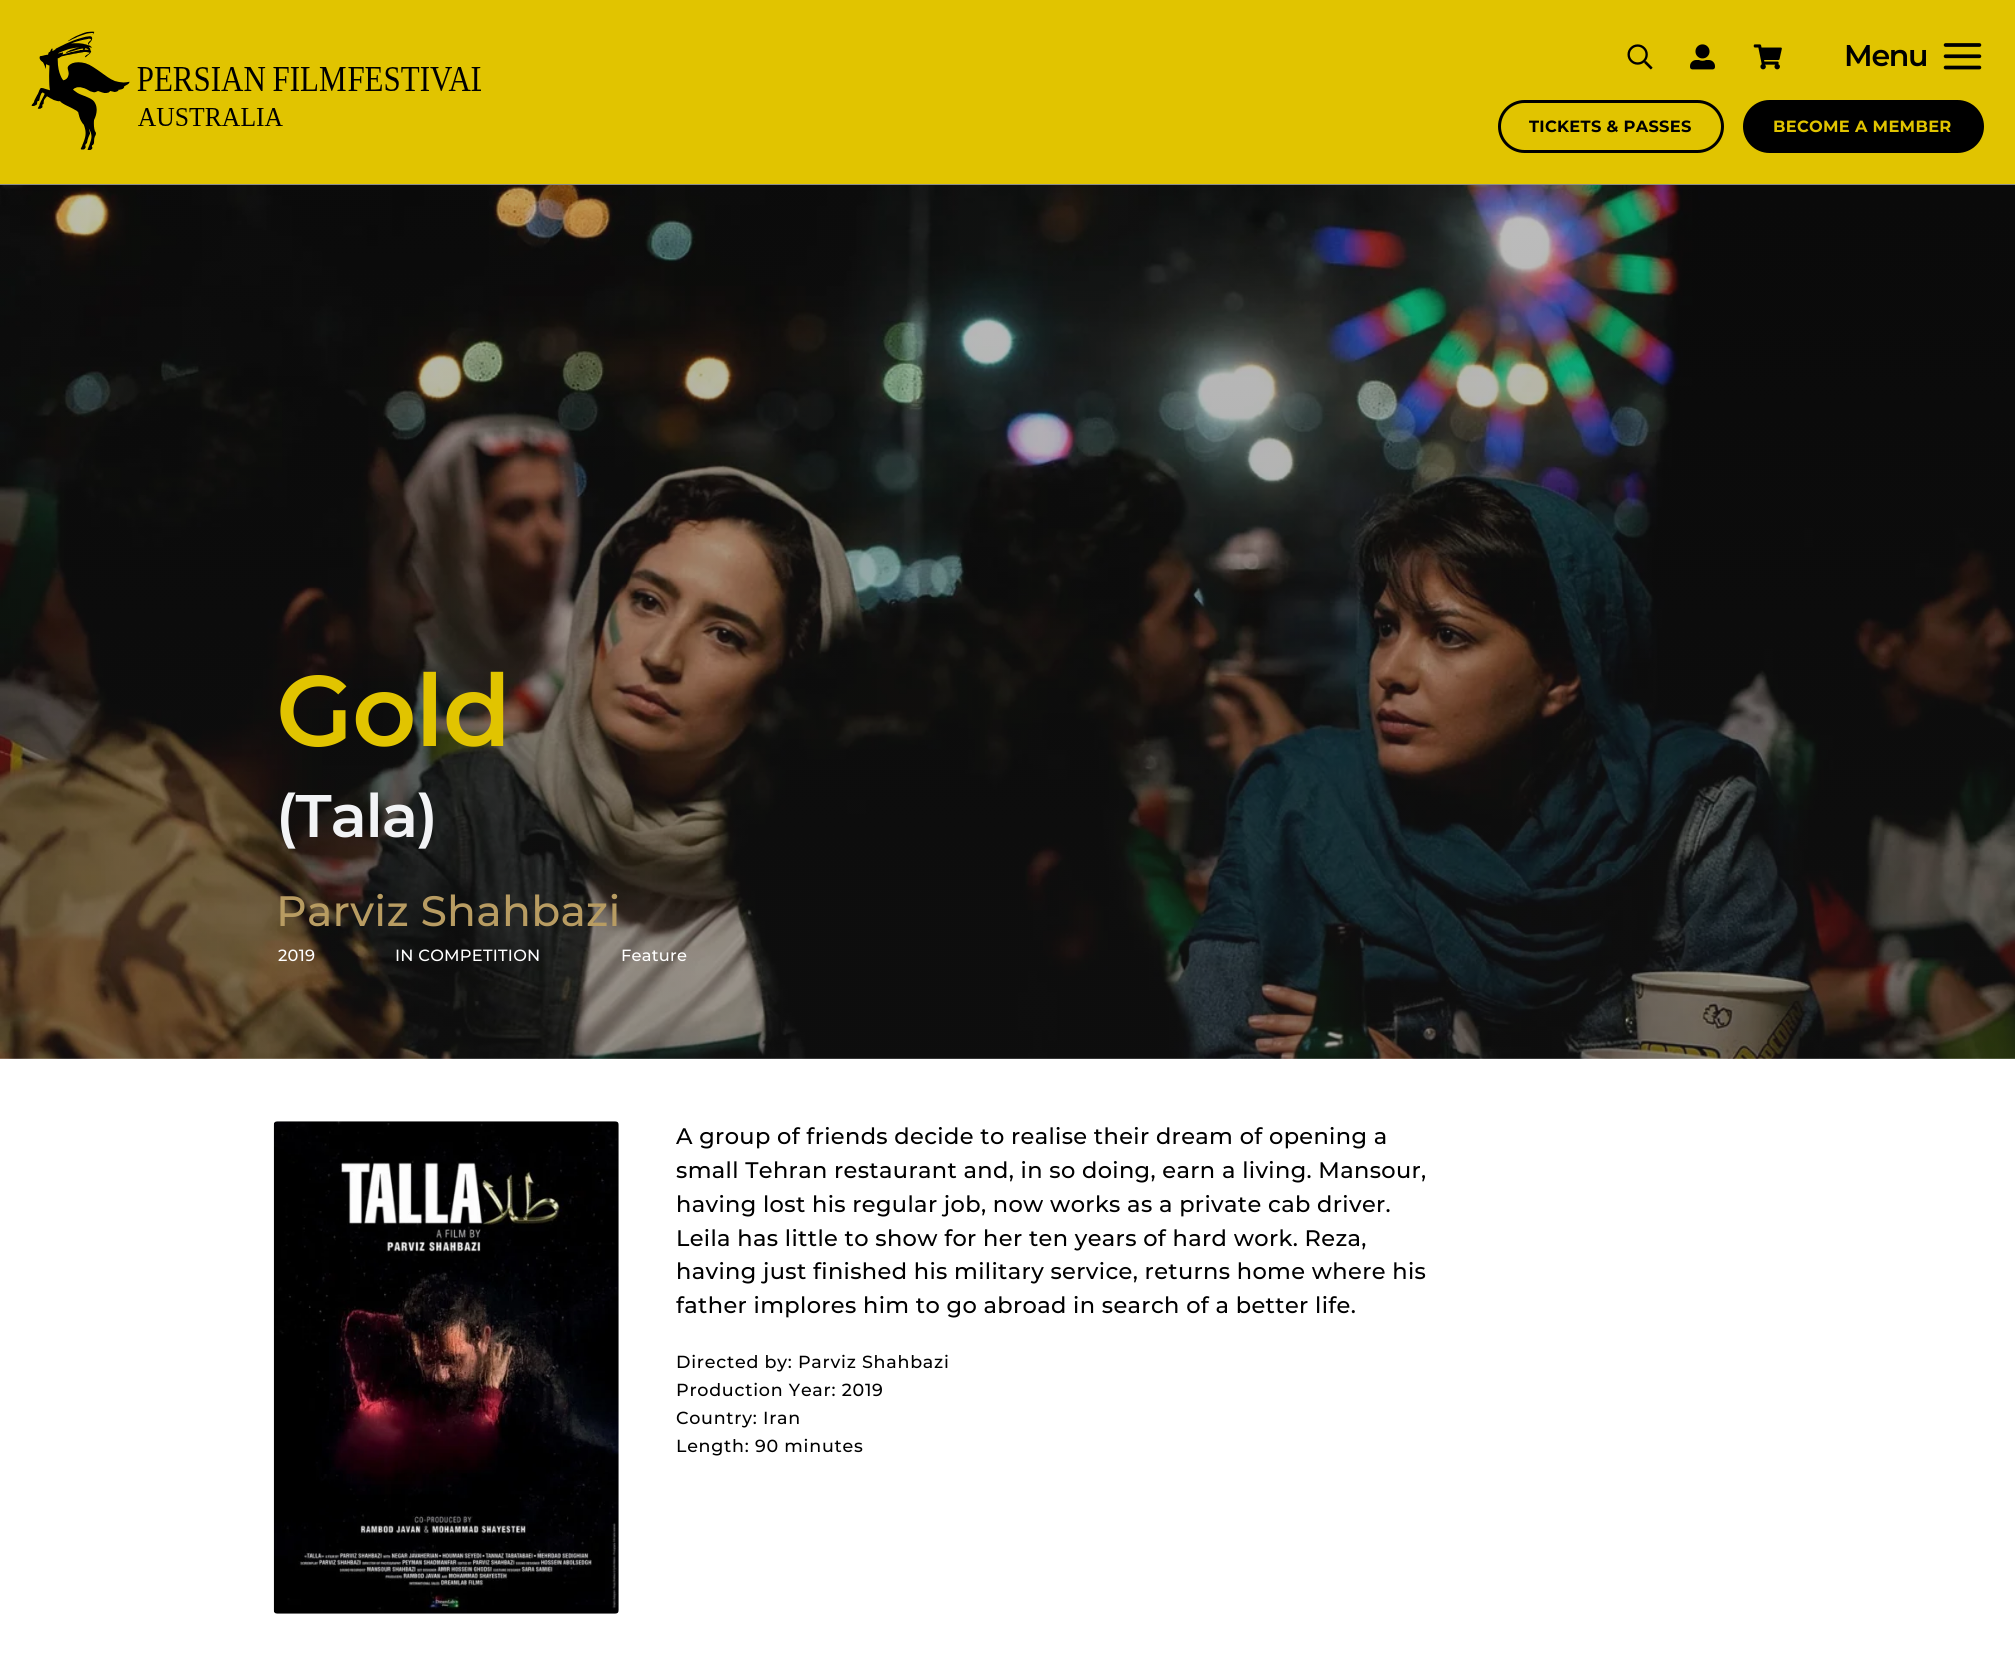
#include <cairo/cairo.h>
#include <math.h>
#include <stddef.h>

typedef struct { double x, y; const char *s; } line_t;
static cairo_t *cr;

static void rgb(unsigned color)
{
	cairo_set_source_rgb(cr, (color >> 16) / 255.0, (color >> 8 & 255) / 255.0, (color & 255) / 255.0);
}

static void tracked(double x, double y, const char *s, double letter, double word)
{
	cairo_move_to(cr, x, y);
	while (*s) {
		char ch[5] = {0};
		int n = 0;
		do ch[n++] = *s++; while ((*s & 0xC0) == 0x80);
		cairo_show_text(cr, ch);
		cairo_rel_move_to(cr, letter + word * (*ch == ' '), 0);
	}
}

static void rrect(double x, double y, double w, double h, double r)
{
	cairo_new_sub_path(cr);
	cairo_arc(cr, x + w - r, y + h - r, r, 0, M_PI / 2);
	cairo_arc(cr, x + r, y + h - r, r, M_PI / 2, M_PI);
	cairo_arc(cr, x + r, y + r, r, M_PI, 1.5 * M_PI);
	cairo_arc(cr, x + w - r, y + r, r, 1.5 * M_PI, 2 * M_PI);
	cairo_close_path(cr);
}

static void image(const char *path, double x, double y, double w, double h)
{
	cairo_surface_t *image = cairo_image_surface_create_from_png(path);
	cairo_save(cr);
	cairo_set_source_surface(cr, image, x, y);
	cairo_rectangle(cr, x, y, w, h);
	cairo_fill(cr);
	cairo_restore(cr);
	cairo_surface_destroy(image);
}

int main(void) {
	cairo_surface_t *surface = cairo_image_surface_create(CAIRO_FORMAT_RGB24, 2015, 1666);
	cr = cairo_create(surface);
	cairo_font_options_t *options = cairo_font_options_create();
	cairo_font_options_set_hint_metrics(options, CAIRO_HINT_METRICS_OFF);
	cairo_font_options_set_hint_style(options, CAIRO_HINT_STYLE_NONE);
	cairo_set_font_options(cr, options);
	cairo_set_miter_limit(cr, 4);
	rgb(0xffffff);
	cairo_paint(cr);
	rgb(0xe1c400);
	cairo_rectangle(cr, 0, 0, 2015, 184);
	cairo_fill(cr);
	image("img/1.png", 31, 31, 450, 119);
	image("img/2.png", 1627, 44, 26, 26);
	image("img/3.png", 1690, 44, 25, 26);
	image("img/4.png", 1753, 44, 29, 26);
	image("img/5.png", 1943, 43, 39, 27);
	rrect(1499.5, 101.5, 223, 50, 25);
	rgb(0x000000);
	cairo_set_line_width(cr, 3);
	cairo_stroke(cr);
	rrect(1743, 100, 241, 53, 26.5);
	cairo_fill(cr);
	image("img/6.png", 0, 185, 2015, 874);
	rgb(0x8c8c8c);
	cairo_rectangle(cr, 0, 184, 2015, 1);
	cairo_fill(cr);
	image("img/7.png", 273, 1121, 346, 493);
	cairo_select_font_face(cr, "Montserrat SemiBold", CAIRO_FONT_SLANT_NORMAL, CAIRO_FONT_WEIGHT_NORMAL);
	cairo_set_font_size(cr, 30);
	rgb(0x000000);
	tracked(1844, 66, "Menu", -1.25, 0);
	cairo_select_font_face(cr, "Montserrat", CAIRO_FONT_SLANT_NORMAL, CAIRO_FONT_WEIGHT_BOLD);
	cairo_set_font_size(cr, 16.25);
	tracked(1529, 132, "TICKETS & PASSES", 0.3, 0);
	rgb(0xe1c400);
	tracked(1773, 132, "BECOME A MEMBER", 0.3, 0);
	cairo_select_font_face(cr, "Montserrat SemiBold", CAIRO_FONT_SLANT_NORMAL, CAIRO_FONT_WEIGHT_NORMAL);
	cairo_set_font_size(cr, 100);
	tracked(276, 746, "Gold", -1.25, 0);
	cairo_set_font_size(cr, 60);
	rgb(0xf2f3f5);
	tracked(276, 837, "(Tala)", -1.25, 0);
	cairo_select_font_face(cr, "Montserrat Medium", CAIRO_FONT_SLANT_NORMAL, CAIRO_FONT_WEIGHT_NORMAL);
	cairo_set_font_size(cr, 42.5);
	rgb(0xb89c62);
	tracked(276, 926, "Parviz Shahbazi", 0.25, 0);
	cairo_set_font_size(cr, 16.25);
	rgb(0xffffff);
	{
		static const line_t items[] = {
			{278, 961, "2019"},
			{395, 961, "IN COMPETITION"},
			{621, 961, "Feature"},
		};
		for (size_t i = 0; i < sizeof items / sizeof *items; i++) {
			tracked(items[i].x, items[i].y, items[i].s, 0.25, 0);
		}
	}
	cairo_set_font_size(cr, 22.5);
	rgb(0x000000);
	{
		static const line_t items[] = {
			{676, 1144, "A group of friends decide to realise their dream of opening a"},
			{676, 1178, "small Tehran restaurant and, in so doing, earn a living. Mansour,"},
			{676, 1212, "having lost his regular job, now works as a private cab driver."},
			{676, 1246, "Leila has little to show for her ten years of hard work. Reza,"},
			{676, 1279, "having just finished his military service, returns home where his"},
			{676, 1313, "father implores him to go abroad in search of a better life."},
		};
		for (size_t i = 0; i < sizeof items / sizeof *items; i++) {
			tracked(items[i].x, items[i].y, items[i].s, 0.35, 0);
		}
	}
	cairo_set_font_size(cr, 17.5);
	{
		static const line_t items[] = {
			{676, 1368, "Directed by: Parviz Shahbazi"},
			{676, 1396, "Production Year: 2019"},
			{676, 1424, "Country: Iran"},
			{676, 1452, "Length: 90 minutes"},
		};
		for (size_t i = 0; i < sizeof items / sizeof *items; i++) {
			tracked(items[i].x, items[i].y, items[i].s, 0.75, 0);
		}
	}
	cairo_surface_write_to_png(surface, "page.png");
	cairo_font_options_destroy(options);
	cairo_destroy(cr);
	cairo_surface_destroy(surface);
	return 0;
}
